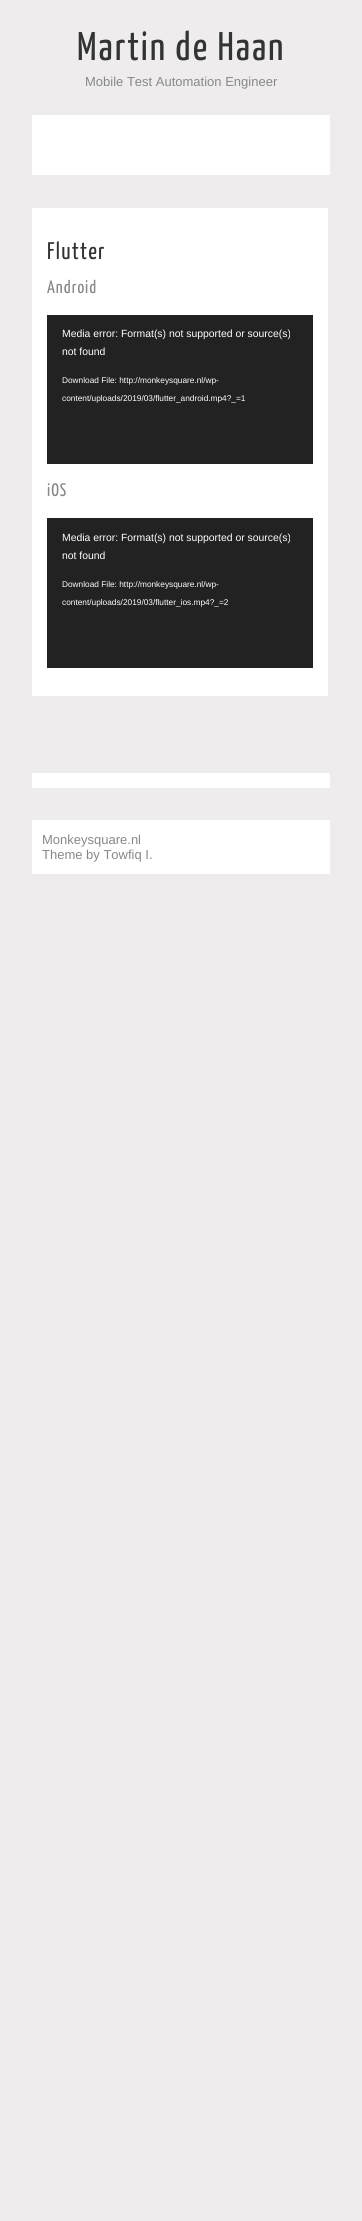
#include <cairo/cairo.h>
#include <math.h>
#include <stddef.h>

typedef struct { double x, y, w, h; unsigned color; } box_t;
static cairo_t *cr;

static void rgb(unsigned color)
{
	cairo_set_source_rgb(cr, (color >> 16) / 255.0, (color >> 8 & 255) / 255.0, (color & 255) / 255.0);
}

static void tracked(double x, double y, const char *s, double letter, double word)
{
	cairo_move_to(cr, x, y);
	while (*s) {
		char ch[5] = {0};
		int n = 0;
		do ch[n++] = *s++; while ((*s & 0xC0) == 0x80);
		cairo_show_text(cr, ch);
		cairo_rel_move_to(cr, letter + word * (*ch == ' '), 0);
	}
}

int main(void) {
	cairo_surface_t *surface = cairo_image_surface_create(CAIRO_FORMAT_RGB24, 362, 2221);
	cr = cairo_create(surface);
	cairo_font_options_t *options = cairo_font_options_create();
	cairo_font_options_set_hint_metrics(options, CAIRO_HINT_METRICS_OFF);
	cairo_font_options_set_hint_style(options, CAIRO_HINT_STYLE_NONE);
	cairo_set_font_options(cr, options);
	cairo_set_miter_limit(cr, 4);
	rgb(0xeeecec);
	cairo_paint(cr);
	{
		static const box_t items[] = {
			{32, 115, 298, 60, 0xffffff},
			{32, 208, 296, 488, 0xffffff},
			{47, 315, 266, 149, 0x222222},
			{47, 518, 266, 150, 0x222222},
			{32, 773, 298, 15, 0xffffff},
			{32, 820, 298, 54, 0xffffff},
		};
		for (size_t i = 0; i < sizeof items / sizeof *items; i++) {
			rgb(items[i].color);
			cairo_rectangle(cr, items[i].x, items[i].y, items[i].w, items[i].h);
			cairo_fill(cr);
		}
	}
	cairo_select_font_face(cr, "Yanone Kaffeesatz", CAIRO_FONT_SLANT_NORMAL, CAIRO_FONT_WEIGHT_NORMAL);
	cairo_set_font_size(cr, 40);
	rgb(0x333333);
	tracked(77, 60, "Martin de Haan", 2, 0);
	cairo_select_font_face(cr, "Liberation Sans", CAIRO_FONT_SLANT_NORMAL, CAIRO_FONT_WEIGHT_NORMAL);
	cairo_set_font_size(cr, 13);
	rgb(0x888888);
	cairo_move_to(cr, 85, 86);
	cairo_show_text(cr, "Mobile Test Automation Engineer");
	cairo_select_font_face(cr, "Yanone Kaffeesatz", CAIRO_FONT_SLANT_NORMAL, CAIRO_FONT_WEIGHT_NORMAL);
	cairo_set_font_size(cr, 24);
	rgb(0x333333);
	tracked(47, 259, "Flutter", 1.25, 0);
	cairo_set_font_size(cr, 18);
	rgb(0x888888);
	tracked(47, 293, "Android", 1, 0);
	cairo_select_font_face(cr, "Liberation Sans", CAIRO_FONT_SLANT_NORMAL, CAIRO_FONT_WEIGHT_NORMAL);
	cairo_set_font_size(cr, 10.4);
	rgb(0xffffff);
	cairo_move_to(cr, 62, 337);
	cairo_show_text(cr, "Media error: Format(s) not supported or source(s)");
	cairo_move_to(cr, 62, 355);
	cairo_show_text(cr, "not found");
	cairo_set_font_size(cr, 8.3);
	cairo_move_to(cr, 62, 383);
	cairo_show_text(cr, "Download File: http://monkeysquare.nl/wp-");
	cairo_move_to(cr, 62, 401);
	cairo_show_text(cr, "content/uploads/2019/03/flutter_android.mp4?_=1");
	cairo_select_font_face(cr, "Yanone Kaffeesatz", CAIRO_FONT_SLANT_NORMAL, CAIRO_FONT_WEIGHT_NORMAL);
	cairo_set_font_size(cr, 18);
	rgb(0x888888);
	tracked(47, 496, "iOS", 1, 0);
	cairo_select_font_face(cr, "Liberation Sans", CAIRO_FONT_SLANT_NORMAL, CAIRO_FONT_WEIGHT_NORMAL);
	cairo_set_font_size(cr, 10.4);
	rgb(0xffffff);
	cairo_move_to(cr, 62, 541);
	cairo_show_text(cr, "Media error: Format(s) not supported or source(s)");
	cairo_move_to(cr, 62, 559);
	cairo_show_text(cr, "not found");
	cairo_set_font_size(cr, 8.3);
	cairo_move_to(cr, 62, 587);
	cairo_show_text(cr, "Download File: http://monkeysquare.nl/wp-");
	cairo_move_to(cr, 62, 605);
	cairo_show_text(cr, "content/uploads/2019/03/flutter_ios.mp4?_=2");
	cairo_set_font_size(cr, 13);
	rgb(0x888888);
	cairo_move_to(cr, 42, 844);
	cairo_show_text(cr, "Monkeysquare.nl");
	cairo_move_to(cr, 42, 859);
	cairo_show_text(cr, "Theme by Towfiq I.");
	cairo_surface_write_to_png(surface, "page.png");
	cairo_font_options_destroy(options);
	cairo_destroy(cr);
	cairo_surface_destroy(surface);
	return 0;
}
